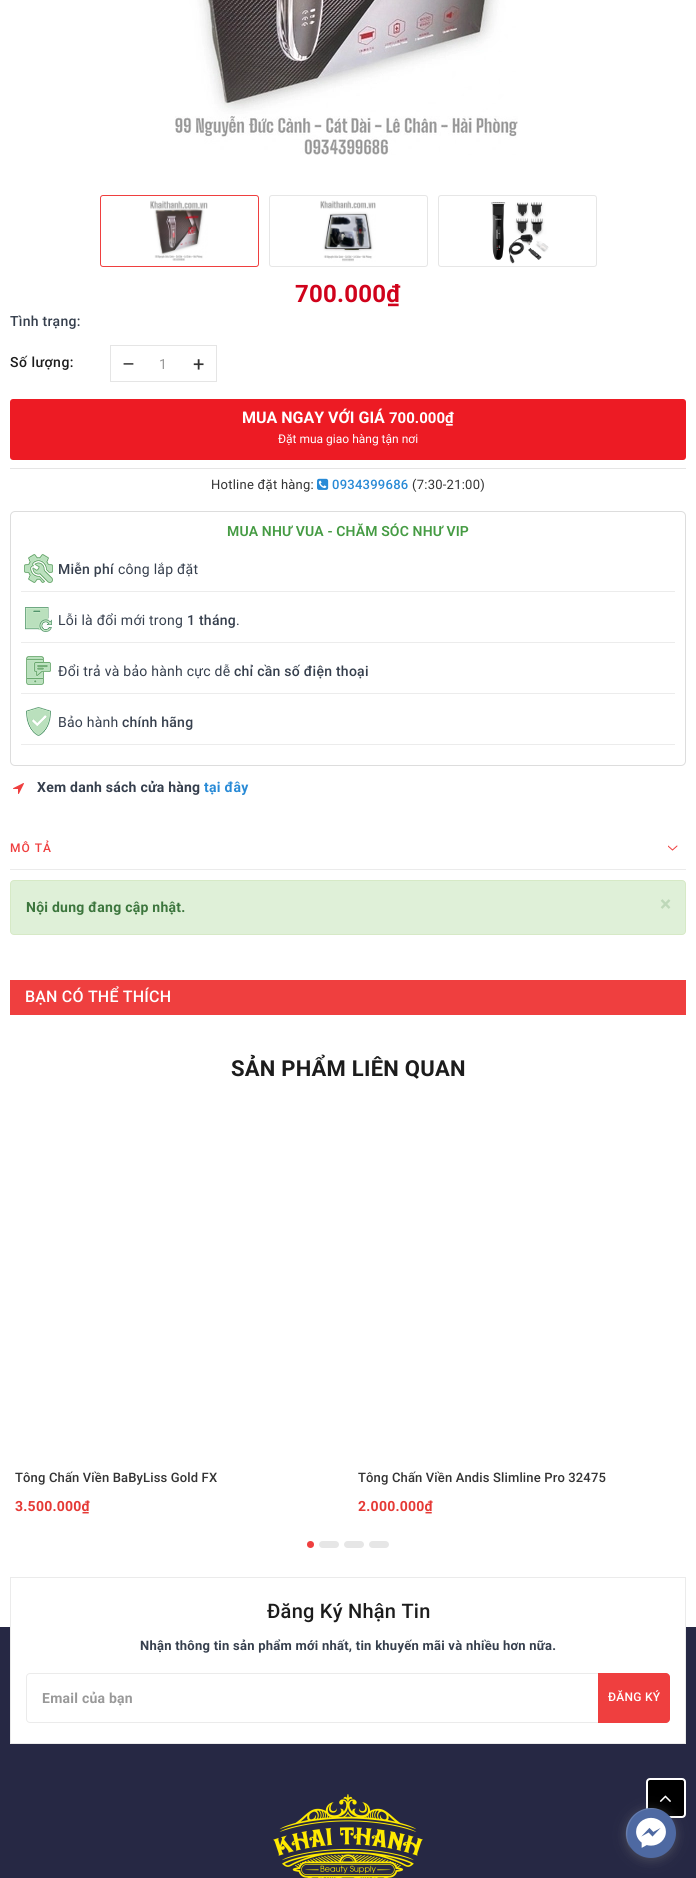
#include <cairo/cairo.h>
#include <math.h>
#include <stddef.h>

static cairo_t *cr;

static void rgb(unsigned color)
{
	cairo_set_source_rgb(cr, (color >> 16) / 255.0, (color >> 8 & 255) / 255.0, (color & 255) / 255.0);
}

static void tracked(double x, double y, const char *s, double letter, double word)
{
	cairo_move_to(cr, x, y);
	while (*s) {
		char ch[5] = {0};
		int n = 0;
		do ch[n++] = *s++; while ((*s & 0xC0) == 0x80);
		cairo_show_text(cr, ch);
		cairo_rel_move_to(cr, letter + word * (*ch == ' '), 0);
	}
}

static void rrect(double x, double y, double w, double h, double r)
{
	cairo_new_sub_path(cr);
	cairo_arc(cr, x + w - r, y + h - r, r, 0, M_PI / 2);
	cairo_arc(cr, x + r, y + h - r, r, M_PI / 2, M_PI);
	cairo_arc(cr, x + r, y + r, r, M_PI, 1.5 * M_PI);
	cairo_arc(cr, x + w - r, y + r, r, 1.5 * M_PI, 2 * M_PI);
	cairo_close_path(cr);
}

static void soft_shadow(double x, double y, double w, double h, double r, double blur, double alpha)
{
	cairo_push_group_with_content(cr, CAIRO_CONTENT_ALPHA);
	cairo_set_operator(cr, CAIRO_OPERATOR_SOURCE);
	for (int i = 15; i >= -15 && fmin(w, h) + blur * i / 3 > 0; i -= 2) {
		double e = blur * i / 6;
		cairo_set_source_rgba(cr, 0, 0, 0, alpha * erfc((i - 1) / 8.5) / 2);
		rrect(x - e, y - e, w + 2 * e, h + 2 * e, fmax(0, fmin(r + e + blur * .6, fmin(w, h) / 2 + e)));
		cairo_fill(cr);
	}
	cairo_pattern_t *soft = cairo_pop_group(cr);
	cairo_mask(cr, soft);
	cairo_pattern_destroy(soft);
}

static void image(const char *path, double x, double y, double w, double h)
{
	cairo_surface_t *image = cairo_image_surface_create_from_png(path);
	cairo_save(cr);
	cairo_set_source_surface(cr, image, x, y);
	cairo_rectangle(cr, x, y, w, h);
	cairo_fill(cr);
	cairo_restore(cr);
	cairo_surface_destroy(image);
}

int main(void) {
	cairo_surface_t *surface = cairo_image_surface_create(CAIRO_FORMAT_RGB24, 696, 1878);
	cr = cairo_create(surface);
	cairo_font_options_t *options = cairo_font_options_create();
	cairo_font_options_set_hint_metrics(options, CAIRO_HINT_METRICS_OFF);
	cairo_font_options_set_hint_style(options, CAIRO_HINT_STYLE_NONE);
	cairo_set_font_options(cr, options);
	cairo_set_miter_limit(cr, 4);
	rgb(0xffffff);
	cairo_paint(cr);
	image("img/1.png", 175, 0, 343, 155);
	rrect(100.5, 195.5, 158, 71, 2.5);
	rgb(0xef3f3f);
	cairo_set_line_width(cr, 1);
	cairo_stroke(cr);
	image("img/2.png", 150, 200, 58, 61);
	rrect(269.5, 195.5, 158, 71, 2.5);
	rgb(0xe6e6e6);
	cairo_stroke(cr);
	image("img/3.png", 320, 200, 56, 62);
	rrect(438.5, 195.5, 158, 71, 2.5);
	cairo_stroke(cr);
	image("img/4.png", 491, 202, 58, 62);
	cairo_rectangle(cr, 110.5, 345.5, 106, 36);
	rgb(0xe5e5e5);
	cairo_stroke(cr);
	rgb(0xed1b24);
	rrect(10, 399, 676, 61, 3);
	cairo_fill(cr);
	rgb(0xe5e5e5);
	cairo_rectangle(cr, 10, 468, 676, 1);
	cairo_fill(cr);
	image("img/5.png", 317, 478, 12, 12);
	rrect(10.5, 511.5, 675, 254, 4.5);
	rgb(0xdddddd);
	cairo_stroke(cr);
	rgb(0xececec);
	cairo_rectangle(cr, 21, 591, 654, 1);
	cairo_fill(cr);
	image("img/6.png", 24, 554, 29, 29);
	cairo_rectangle(cr, 21, 642, 654, 1);
	cairo_fill(cr);
	image("img/7.png", 25, 607, 27, 25);
	cairo_rectangle(cr, 21, 693, 654, 1);
	cairo_fill(cr);
	image("img/8.png", 26, 656, 25, 29);
	cairo_rectangle(cr, 21, 744, 654, 1);
	cairo_fill(cr);
	image("img/9.png", 26, 707, 25, 29);
	image("img/10.png", 13, 783, 11, 11);
	rgb(0xebebeb);
	cairo_rectangle(cr, 10, 869, 676, 1);
	cairo_fill(cr);
	cairo_save(cr);
	cairo_new_path(cr);
	cairo_move_to(cr, 678, 845.5);
	cairo_line_to(cr, 678, 851.5);
	cairo_line_to(cr, 668, 851.5);
	cairo_line_to(cr, 668, 845.5);
	cairo_close_path(cr);
	cairo_clip(cr);
	cairo_new_path(cr);
	cairo_move_to(cr, 677, 846);
	cairo_line_to(cr, 672.5, 850);
	cairo_line_to(cr, 668, 846);
	rgb(0xef3f3f);
	cairo_set_line_cap(cr, CAIRO_LINE_CAP_ROUND);
	cairo_stroke(cr);
	cairo_restore(cr);
	rgb(0xdff0d8);
	rrect(10.5, 880.5, 675, 54, 3.5);
	cairo_fill_preserve(cr);
	rgb(0xd6e9c6);
	cairo_stroke(cr);
	rgb(0xef3f3f);
	cairo_rectangle(cr, 10, 980, 676, 35);
	cairo_fill(cr);
	cairo_arc(cr, 310.5, 1544.5, 3.5, 0, 2 * M_PI);
	cairo_fill(cr);
	rgb(0xe6e6e6);
	rrect(319, 1541, 20, 7, 3.5);
	cairo_fill(cr);
	rrect(344, 1541, 20, 7, 3.5);
	cairo_fill(cr);
	rrect(369, 1541, 20, 7, 3.5);
	cairo_fill(cr);
	rgb(0x262844);
	cairo_rectangle(cr, 0, 1627, 696, 251);
	cairo_fill(cr);
	rgb(0xffffff);
	cairo_rectangle(cr, 11, 1627, 674, 116);
	cairo_fill(cr);
	cairo_rectangle(cr, 10.5, 1577.5, 675, 166);
	rgb(0xebebeb);
	cairo_stroke(cr);
	rrect(26.5, 1673.5, 643, 49, 3.5);
	cairo_stroke(cr);
	rgb(0xef3f3f);
	cairo_new_path(cr);
	cairo_move_to(cr, 598, 1673);
	cairo_line_to(cr, 666, 1673);
	cairo_curve_to(cr, 668, 1673, 670, 1675, 670, 1677);
	cairo_line_to(cr, 670, 1719);
	cairo_curve_to(cr, 670, 1721, 668, 1723, 666, 1723);
	cairo_line_to(cr, 598, 1723);
	cairo_close_path(cr);
	cairo_fill(cr);
	image("img/11.png", 273, 1794, 150, 84);
	rgb(0x000000);
	rrect(647, 1779, 38, 38, 3);
	cairo_fill_preserve(cr);
	rgb(0xffffff);
	cairo_set_line_width(cr, 2);
	cairo_stroke(cr);
	image("img/12.png", 659, 1795, 12, 7);
	rgb(0x808080);
	soft_shadow(626, 1810, 50, 50, 25, 5.5, 0.4);
	rgb(0x4e69a2);
	cairo_arc(cr, 651, 1833, 25, 0, 2 * M_PI);
	cairo_fill(cr);
	cairo_set_source_rgba(cr, 1, 1, 1, 0.15);
	cairo_new_path(cr);
	cairo_move_to(cr, 652, 1809);
	cairo_curve_to(cr, 657, 1809, 661, 1810, 665, 1812);
	cairo_curve_to(cr, 641, 1797, 614, 1827, 631, 1849);
	cairo_curve_to(cr, 622, 1834, 629, 1809, 652, 1809);
	cairo_close_path(cr);
	cairo_fill(cr);
	image("img/13.png", 636, 1817, 30, 31);
	cairo_select_font_face(cr, "Roboto", CAIRO_FONT_SLANT_NORMAL, CAIRO_FONT_WEIGHT_BOLD);
	cairo_set_font_size(cr, 24);
	rgb(0xd0021b);
	tracked(295, 302, "700.000₫", 0.25, 0);
	cairo_select_font_face(cr, "Roboto Medium", CAIRO_FONT_SLANT_NORMAL, CAIRO_FONT_WEIGHT_NORMAL);
	cairo_set_font_size(cr, 14);
	rgb(0x363f4d);
	tracked(10, 326, "Tình trạng:", 0.25, 0);
	rgb(0x1c1c1c);
	tracked(10, 367, "Số lượng:", 0.5, 0);
	cairo_select_font_face(cr, "Roboto", CAIRO_FONT_SLANT_NORMAL, CAIRO_FONT_WEIGHT_NORMAL);
	cairo_set_font_size(cr, 20);
	rgb(0x333333);
	tracked(122, 371, "–", 0.25, 0);
	cairo_set_font_size(cr, 14);
	rgb(0x999999);
	tracked(159, 369, "1", 0.25, 0);
	cairo_set_font_size(cr, 20);
	rgb(0x333333);
	tracked(193, 371, "+", 0.25, 0);
	cairo_select_font_face(cr, "Roboto", CAIRO_FONT_SLANT_NORMAL, CAIRO_FONT_WEIGHT_BOLD);
	cairo_set_font_size(cr, 16);
	rgb(0xffffff);
	cairo_move_to(cr, 242, 423);
	cairo_show_text(cr, "MUA NGAY VỚI GIÁ");
	cairo_set_font_size(cr, 15);
	cairo_move_to(cr, 389, 423);
	cairo_show_text(cr, "700.000₫");
	cairo_select_font_face(cr, "Roboto", CAIRO_FONT_SLANT_NORMAL, CAIRO_FONT_WEIGHT_NORMAL);
	cairo_set_font_size(cr, 12);
	cairo_move_to(cr, 278, 443);
	cairo_show_text(cr, "Đặt mua giao hàng tận nơi");
	cairo_set_font_size(cr, 13);
	rgb(0x333333);
	tracked(211, 489, "Hotline đặt hàng:", 0.25, 0);
	cairo_select_font_face(cr, "Roboto Medium", CAIRO_FONT_SLANT_NORMAL, CAIRO_FONT_WEIGHT_NORMAL);
	rgb(0x288ad6);
	tracked(332, 489, "0934399686", 0.25, 0);
	cairo_select_font_face(cr, "Roboto", CAIRO_FONT_SLANT_NORMAL, CAIRO_FONT_WEIGHT_NORMAL);
	rgb(0x333333);
	tracked(412, 489, "(7:30-21:00)", 0.25, 0);
	cairo_select_font_face(cr, "Roboto SemiBold", CAIRO_FONT_SLANT_NORMAL, CAIRO_FONT_WEIGHT_NORMAL);
	cairo_set_font_size(cr, 14);
	rgb(0x459b43);
	tracked(227, 536, "MUA NHƯ VUA - CHĂM SÓC NHƯ VIP", 0.15, 0);
	cairo_select_font_face(cr, "Roboto Medium", CAIRO_FONT_SLANT_NORMAL, CAIRO_FONT_WEIGHT_NORMAL);
	rgb(0x363f4d);
	tracked(58, 574, "Miễn phí", 0.25, 0);
	cairo_select_font_face(cr, "Roboto", CAIRO_FONT_SLANT_NORMAL, CAIRO_FONT_WEIGHT_NORMAL);
	tracked(118, 574, "công lắp đặt", 0.25, 0);
	tracked(58, 625, "Lỗi là đổi mới trong", 0.25, 0);
	cairo_select_font_face(cr, "Roboto Medium", CAIRO_FONT_SLANT_NORMAL, CAIRO_FONT_WEIGHT_NORMAL);
	tracked(187, 625, "1 tháng", 0.25, 0);
	cairo_select_font_face(cr, "Roboto", CAIRO_FONT_SLANT_NORMAL, CAIRO_FONT_WEIGHT_NORMAL);
	tracked(236, 625, ".", 0.25, 0);
	tracked(58, 676, "Đổi trả và bảo hành cực dễ", 0.25, 0);
	cairo_select_font_face(cr, "Roboto Medium", CAIRO_FONT_SLANT_NORMAL, CAIRO_FONT_WEIGHT_NORMAL);
	tracked(234, 676, "chỉ cần số điện thoại", 0.25, 0);
	cairo_select_font_face(cr, "Roboto", CAIRO_FONT_SLANT_NORMAL, CAIRO_FONT_WEIGHT_NORMAL);
	tracked(58, 727, "Bảo hành", 0.25, 0);
	cairo_select_font_face(cr, "Roboto Medium", CAIRO_FONT_SLANT_NORMAL, CAIRO_FONT_WEIGHT_NORMAL);
	tracked(122, 727, "chính hãng", 0.25, 0);
	cairo_select_font_face(cr, "Roboto", CAIRO_FONT_SLANT_NORMAL, CAIRO_FONT_WEIGHT_BOLD);
	tracked(37, 792, "Xem danh sách cửa hàng", 0.25, 0);
	rgb(0x288ad6);
	tracked(204, 792, "tại đây", 0.25, 0);
	cairo_select_font_face(cr, "Roboto Medium", CAIRO_FONT_SLANT_NORMAL, CAIRO_FONT_WEIGHT_NORMAL);
	cairo_set_font_size(cr, 12);
	rgb(0xef3f3f);
	tracked(10, 852, "MÔ TẢ", 1, 0);
	cairo_select_font_face(cr, "Roboto", CAIRO_FONT_SLANT_NORMAL, CAIRO_FONT_WEIGHT_BOLD);
	cairo_set_font_size(cr, 14);
	rgb(0x3c763d);
	tracked(26, 912, "Nội dung đang cập nhật.", 0.25, 0);
	cairo_set_font_size(cr, 21);
	rgb(0xbed8b9);
	tracked(660, 911, "×", 0.25, 0);
	cairo_select_font_face(cr, "Roboto Medium", CAIRO_FONT_SLANT_NORMAL, CAIRO_FONT_WEIGHT_NORMAL);
	cairo_set_font_size(cr, 16);
	rgb(0xffffff);
	tracked(25, 1002, "BẠN CÓ THỂ THÍCH", 0.2, 0);
	cairo_select_font_face(cr, "Roboto", CAIRO_FONT_SLANT_NORMAL, CAIRO_FONT_WEIGHT_BOLD);
	cairo_set_font_size(cr, 22);
	rgb(0x1c1c1c);
	tracked(231, 1076, "SẢN PHẨM LIÊN QUAN", 0.25, 0);
	cairo_select_font_face(cr, "Roboto Medium", CAIRO_FONT_SLANT_NORMAL, CAIRO_FONT_WEIGHT_NORMAL);
	cairo_set_font_size(cr, 13);
	rgb(0x333333);
	tracked(15, 1482, "Tông Chấn Viền BaByLiss Gold FX", 0.15, 0);
	cairo_select_font_face(cr, "Roboto", CAIRO_FONT_SLANT_NORMAL, CAIRO_FONT_WEIGHT_BOLD);
	cairo_set_font_size(cr, 14);
	rgb(0xe53935);
	tracked(15, 1511, "3.500.000₫", 0.25, 0);
	cairo_select_font_face(cr, "Roboto Medium", CAIRO_FONT_SLANT_NORMAL, CAIRO_FONT_WEIGHT_NORMAL);
	cairo_set_font_size(cr, 13);
	rgb(0x333333);
	tracked(358, 1482, "Tông Chấn Viền Andis Slimline Pro 32475", 0.15, 0);
	cairo_select_font_face(cr, "Roboto", CAIRO_FONT_SLANT_NORMAL, CAIRO_FONT_WEIGHT_BOLD);
	cairo_set_font_size(cr, 14);
	rgb(0xe53935);
	tracked(358, 1511, "2.000.000₫", 0.25, 0);
	cairo_select_font_face(cr, "Roboto Medium", CAIRO_FONT_SLANT_NORMAL, CAIRO_FONT_WEIGHT_NORMAL);
	cairo_set_font_size(cr, 20);
	rgb(0x1c1c1c);
	tracked(267, 1618, "Đăng Ký Nhận Tin", 0.25, 0);
	cairo_select_font_face(cr, "Roboto", CAIRO_FONT_SLANT_NORMAL, CAIRO_FONT_WEIGHT_BOLD);
	cairo_set_font_size(cr, 13);
	rgb(0x363f4d);
	tracked(140, 1650, "Nhận thông tin sản phẩm mới nhất, tin khuyến mãi và nhiều hơn nữa.", 0.25, 0);
	cairo_set_font_size(cr, 14);
	rgb(0x999999);
	tracked(42, 1703, "Email của bạn", 0.25, 0);
	cairo_select_font_face(cr, "Roboto Medium", CAIRO_FONT_SLANT_NORMAL, CAIRO_FONT_WEIGHT_NORMAL);
	cairo_set_font_size(cr, 12);
	rgb(0xffffff);
	tracked(608, 1701, "ĐĂNG KÝ", 0.25, 0);
	cairo_surface_write_to_png(surface, "page.png");
	cairo_font_options_destroy(options);
	cairo_destroy(cr);
	cairo_surface_destroy(surface);
	return 0;
}
